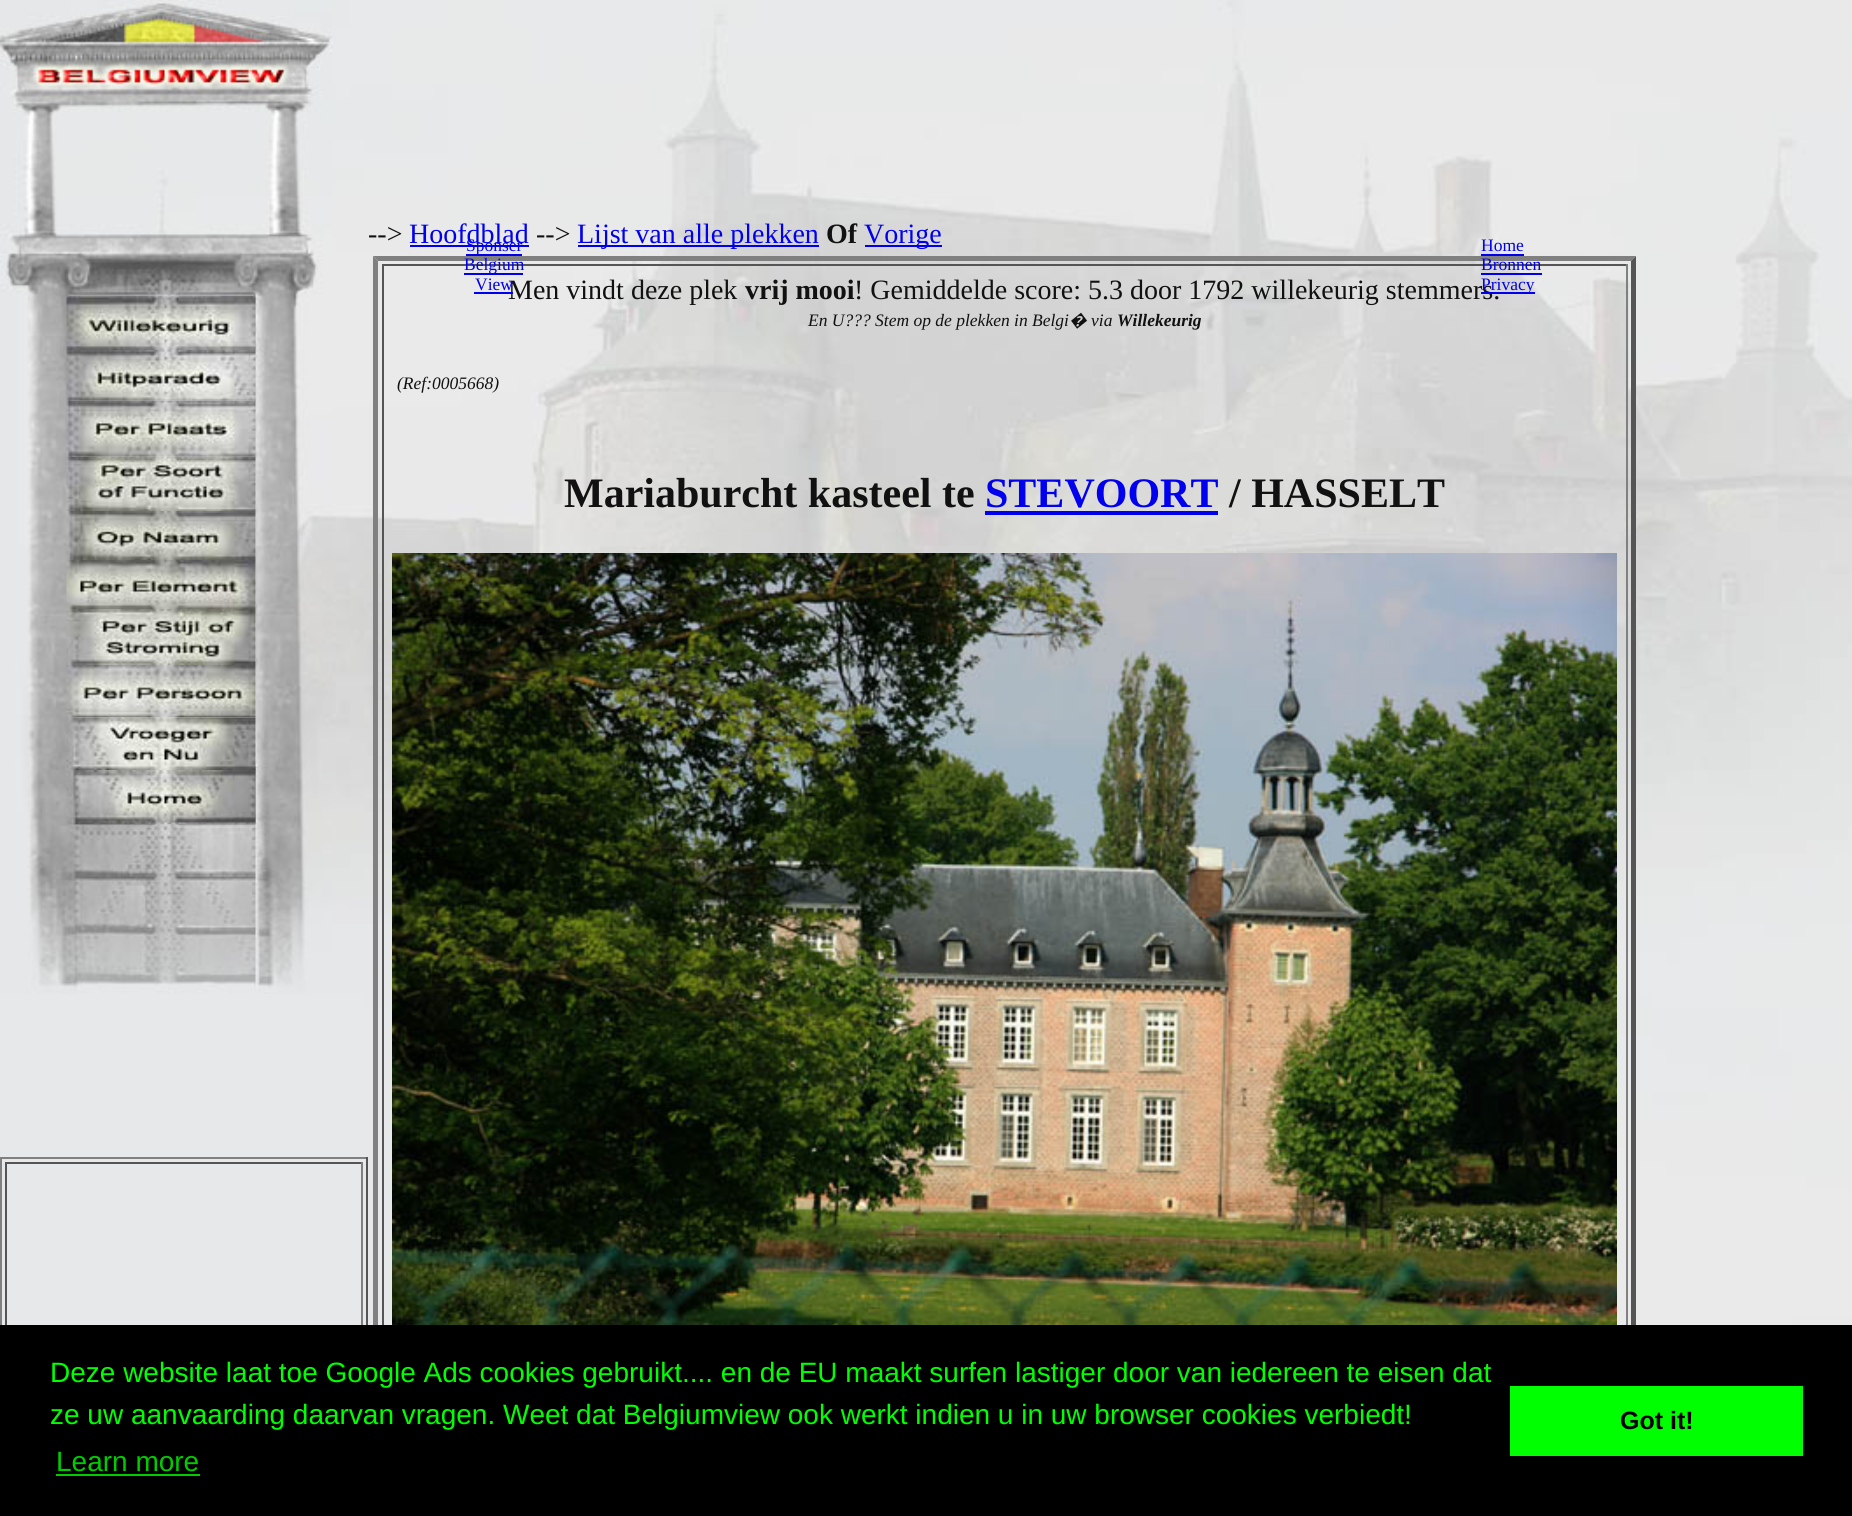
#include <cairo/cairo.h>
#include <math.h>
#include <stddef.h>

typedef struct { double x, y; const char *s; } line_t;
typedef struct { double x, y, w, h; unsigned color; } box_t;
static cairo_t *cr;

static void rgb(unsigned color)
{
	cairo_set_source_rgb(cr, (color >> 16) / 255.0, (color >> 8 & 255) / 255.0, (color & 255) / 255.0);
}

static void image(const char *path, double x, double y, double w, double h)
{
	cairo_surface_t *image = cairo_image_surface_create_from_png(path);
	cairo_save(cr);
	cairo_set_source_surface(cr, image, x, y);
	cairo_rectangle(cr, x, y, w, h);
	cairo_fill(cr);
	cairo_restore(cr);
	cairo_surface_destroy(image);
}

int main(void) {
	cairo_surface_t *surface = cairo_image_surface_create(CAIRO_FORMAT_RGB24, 1852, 1516);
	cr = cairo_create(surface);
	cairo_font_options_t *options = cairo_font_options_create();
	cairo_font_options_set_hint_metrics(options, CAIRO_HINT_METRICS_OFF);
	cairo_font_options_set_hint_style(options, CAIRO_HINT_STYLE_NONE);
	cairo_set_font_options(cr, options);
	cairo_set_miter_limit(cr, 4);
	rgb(0xffffff);
	cairo_paint(cr);
	image("img/1.png", 0, 0, 1852, 1325);
	image("img/2.png", 0, 0, 333, 994);
	{
		static const box_t items[] = {
			{410, 245, 119, 2, 0x0000ee},
			{578, 245, 241, 2, 0x0000ee},
			{865, 245, 77, 2, 0x0000ee},
		};
		for (size_t i = 0; i < sizeof items / sizeof *items; i++) {
			rgb(items[i].color);
			cairo_rectangle(cr, items[i].x, items[i].y, items[i].w, items[i].h);
			cairo_fill(cr);
		}
	}
	rgb(0x808080);
	cairo_new_path(cr);
	cairo_move_to(cr, 373, 256);
	cairo_line_to(cr, 1636, 256);
	cairo_line_to(cr, 1631, 261);
	cairo_line_to(cr, 378, 261);
	cairo_close_path(cr);
	cairo_fill(cr);
	rgb(0x555555);
	cairo_new_path(cr);
	cairo_move_to(cr, 1636, 256);
	cairo_line_to(cr, 1636, 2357);
	cairo_line_to(cr, 1631, 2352);
	cairo_line_to(cr, 1631, 261);
	cairo_close_path(cr);
	cairo_fill(cr);
	rgb(0x808080);
	cairo_new_path(cr);
	cairo_move_to(cr, 373, 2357);
	cairo_line_to(cr, 373, 256);
	cairo_line_to(cr, 378, 261);
	cairo_line_to(cr, 378, 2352);
	cairo_close_path(cr);
	cairo_fill(cr);
	{
		static const box_t items[] = {
			{382, 264, 1246, 2, 0x555555},
			{1626, 264, 2, 1061, 0x808080},
			{382, 264, 2, 1061, 0x555555},
			{985, 511, 233, 4, 0x0000ee},
		};
		for (size_t i = 0; i < sizeof items / sizeof *items; i++) {
			rgb(items[i].color);
			cairo_rectangle(cr, items[i].x, items[i].y, items[i].w, items[i].h);
			cairo_fill(cr);
		}
	}
	image("img/3.png", 392, 553, 1225, 772);
	{
		static const box_t items[] = {
			{466, 254, 56, 2, 0x0000ee},
			{464, 273, 59, 2, 0x0000ee},
			{1481, 254, 43, 2, 0x0000ee},
			{1481, 273, 61, 2, 0x0000ee},
		};
		for (size_t i = 0; i < sizeof items / sizeof *items; i++) {
			rgb(items[i].color);
			cairo_rectangle(cr, items[i].x, items[i].y, items[i].w, items[i].h);
			cairo_fill(cr);
		}
	}
	image("img/4.png", 66, 295, 190, 55);
	image("img/5.png", 66, 350, 190, 51);
	image("img/6.png", 66, 400, 190, 57);
	image("img/7.png", 66, 456, 190, 55);
	image("img/8.png", 66, 511, 190, 49);
	image("img/9.png", 66, 560, 190, 49);
	image("img/10.png", 66, 609, 190, 56);
	image("img/11.png", 66, 665, 190, 53);
	image("img/12.png", 66, 717, 190, 53);
	image("img/13.png", 66, 770, 190, 55);
	{
		static const box_t items[] = {
			{0, 1157, 368, 2, 0x808080},
			{366, 1157, 2, 168, 0x555555},
			{0, 1157, 2, 168, 0x808080},
			{5, 1162, 357, 2, 0x555555},
			{361, 1162, 2, 163, 0x808080},
			{5, 1162, 2, 163, 0x555555},
			{0, 1325, 1852, 191, 0x000000},
			{56, 1474, 144, 2, 0x00cc00},
			{1510, 1386, 293, 70, 0x00ff00},
		};
		for (size_t i = 0; i < sizeof items / sizeof *items; i++) {
			rgb(items[i].color);
			cairo_rectangle(cr, items[i].x, items[i].y, items[i].w, items[i].h);
			cairo_fill(cr);
		}
	}
	cairo_select_font_face(cr, "Liberation Serif", CAIRO_FONT_SLANT_NORMAL, CAIRO_FONT_WEIGHT_NORMAL);
	cairo_set_font_size(cr, 28);
	rgb(0x111111);
	cairo_move_to(cr, 368, 243);
	cairo_show_text(cr, "-->");
	rgb(0x0000ee);
	cairo_move_to(cr, 409, 243);
	cairo_show_text(cr, "Hoofdblad");
	rgb(0x111111);
	cairo_move_to(cr, 536, 243);
	cairo_show_text(cr, "-->");
	rgb(0x0000ee);
	cairo_move_to(cr, 577, 243);
	cairo_show_text(cr, "Lijst van alle plekken");
	cairo_select_font_face(cr, "Liberation Serif", CAIRO_FONT_SLANT_NORMAL, CAIRO_FONT_WEIGHT_BOLD);
	rgb(0x111111);
	cairo_move_to(cr, 826, 243);
	cairo_show_text(cr, "Of");
	cairo_select_font_face(cr, "Liberation Serif", CAIRO_FONT_SLANT_NORMAL, CAIRO_FONT_WEIGHT_NORMAL);
	rgb(0x0000ee);
	cairo_move_to(cr, 864, 243);
	cairo_show_text(cr, "Vorige");
	rgb(0x111111);
	cairo_move_to(cr, 508, 299);
	cairo_show_text(cr, "Men vindt deze plek");
	cairo_select_font_face(cr, "Liberation Serif", CAIRO_FONT_SLANT_NORMAL, CAIRO_FONT_WEIGHT_BOLD);
	cairo_move_to(cr, 745, 299);
	cairo_show_text(cr, "vrij mooi");
	cairo_select_font_face(cr, "Liberation Serif", CAIRO_FONT_SLANT_NORMAL, CAIRO_FONT_WEIGHT_NORMAL);
	cairo_move_to(cr, 854, 299);
	cairo_show_text(cr, "! Gemiddelde score: 5.3 door 1792 willekeurig stemmers.");
	cairo_select_font_face(cr, "Liberation Serif", CAIRO_FONT_SLANT_ITALIC, CAIRO_FONT_WEIGHT_NORMAL);
	cairo_set_font_size(cr, 17.5);
	cairo_move_to(cr, 808, 326);
	cairo_show_text(cr, "En U?\077? Stem op de plekken in Belgi");
	cairo_select_font_face(cr, "Noto Sans", CAIRO_FONT_SLANT_ITALIC, CAIRO_FONT_WEIGHT_NORMAL);
	cairo_move_to(cr, 1069, 326);
	cairo_show_text(cr, "�");
	cairo_select_font_face(cr, "Liberation Serif", CAIRO_FONT_SLANT_ITALIC, CAIRO_FONT_WEIGHT_NORMAL);
	cairo_move_to(cr, 1091, 326);
	cairo_show_text(cr, "via");
	cairo_select_font_face(cr, "Liberation Serif", CAIRO_FONT_SLANT_ITALIC, CAIRO_FONT_WEIGHT_BOLD);
	cairo_move_to(cr, 1117, 326);
	cairo_show_text(cr, "Willekeurig");
	cairo_select_font_face(cr, "Liberation Serif", CAIRO_FONT_SLANT_ITALIC, CAIRO_FONT_WEIGHT_NORMAL);
	cairo_move_to(cr, 397, 389);
	cairo_show_text(cr, "(Ref:0005668)");
	cairo_select_font_face(cr, "Liberation Serif", CAIRO_FONT_SLANT_NORMAL, CAIRO_FONT_WEIGHT_BOLD);
	cairo_set_font_size(cr, 42);
	cairo_move_to(cr, 564, 507);
	cairo_show_text(cr, "Mariaburcht kasteel te");
	rgb(0x0000ee);
	cairo_move_to(cr, 985, 507);
	cairo_show_text(cr, "STEVOORT");
	rgb(0x111111);
	cairo_move_to(cr, 1229, 507);
	cairo_show_text(cr, "/ HASSELT");
	cairo_select_font_face(cr, "Liberation Serif", CAIRO_FONT_SLANT_NORMAL, CAIRO_FONT_WEIGHT_NORMAL);
	cairo_set_font_size(cr, 17.5);
	rgb(0x0000ee);
	{
		static const line_t items[] = {
			{466, 251, "Sponser"},
			{464, 270, "Belgium"},
			{475, 290, "View"},
		};
		for (size_t i = 0; i < sizeof items / sizeof *items; i++) {
			cairo_move_to(cr, items[i].x, items[i].y);
			cairo_show_text(cr, items[i].s);
		}
	}
	cairo_rectangle(cr, 474, 292, 39, 2);
	cairo_fill(cr);
	cairo_move_to(cr, 1481, 251);
	cairo_show_text(cr, "Home");
	cairo_move_to(cr, 1481, 270);
	cairo_show_text(cr, "Bronnen");
	cairo_rectangle(cr, 1481, 292, 54, 2);
	cairo_fill(cr);
	cairo_move_to(cr, 1481, 290);
	cairo_show_text(cr, "Privacy");
	cairo_select_font_face(cr, "Liberation Sans", CAIRO_FONT_SLANT_NORMAL, CAIRO_FONT_WEIGHT_NORMAL);
	cairo_set_font_size(cr, 28);
	rgb(0x00ff00);
	cairo_move_to(cr, 50, 1382);
	cairo_show_text(cr, "Deze website laat toe Google Ads cookies gebruikt.... en de EU maakt surfen lastiger door van iedereen te eisen dat");
	cairo_move_to(cr, 50, 1424);
	cairo_show_text(cr, "ze uw aanvaarding daarvan vragen. Weet dat Belgiumview ook werkt indien u in uw browser cookies verbiedt!");
	rgb(0x00cc00);
	cairo_move_to(cr, 56, 1471);
	cairo_show_text(cr, "Learn more");
	cairo_select_font_face(cr, "Liberation Sans", CAIRO_FONT_SLANT_NORMAL, CAIRO_FONT_WEIGHT_BOLD);
	cairo_set_font_size(cr, 25);
	rgb(0x000000);
	cairo_move_to(cr, 1620, 1429);
	cairo_show_text(cr, "Got it!");
	cairo_surface_write_to_png(surface, "page.png");
	cairo_font_options_destroy(options);
	cairo_destroy(cr);
	cairo_surface_destroy(surface);
	return 0;
}
